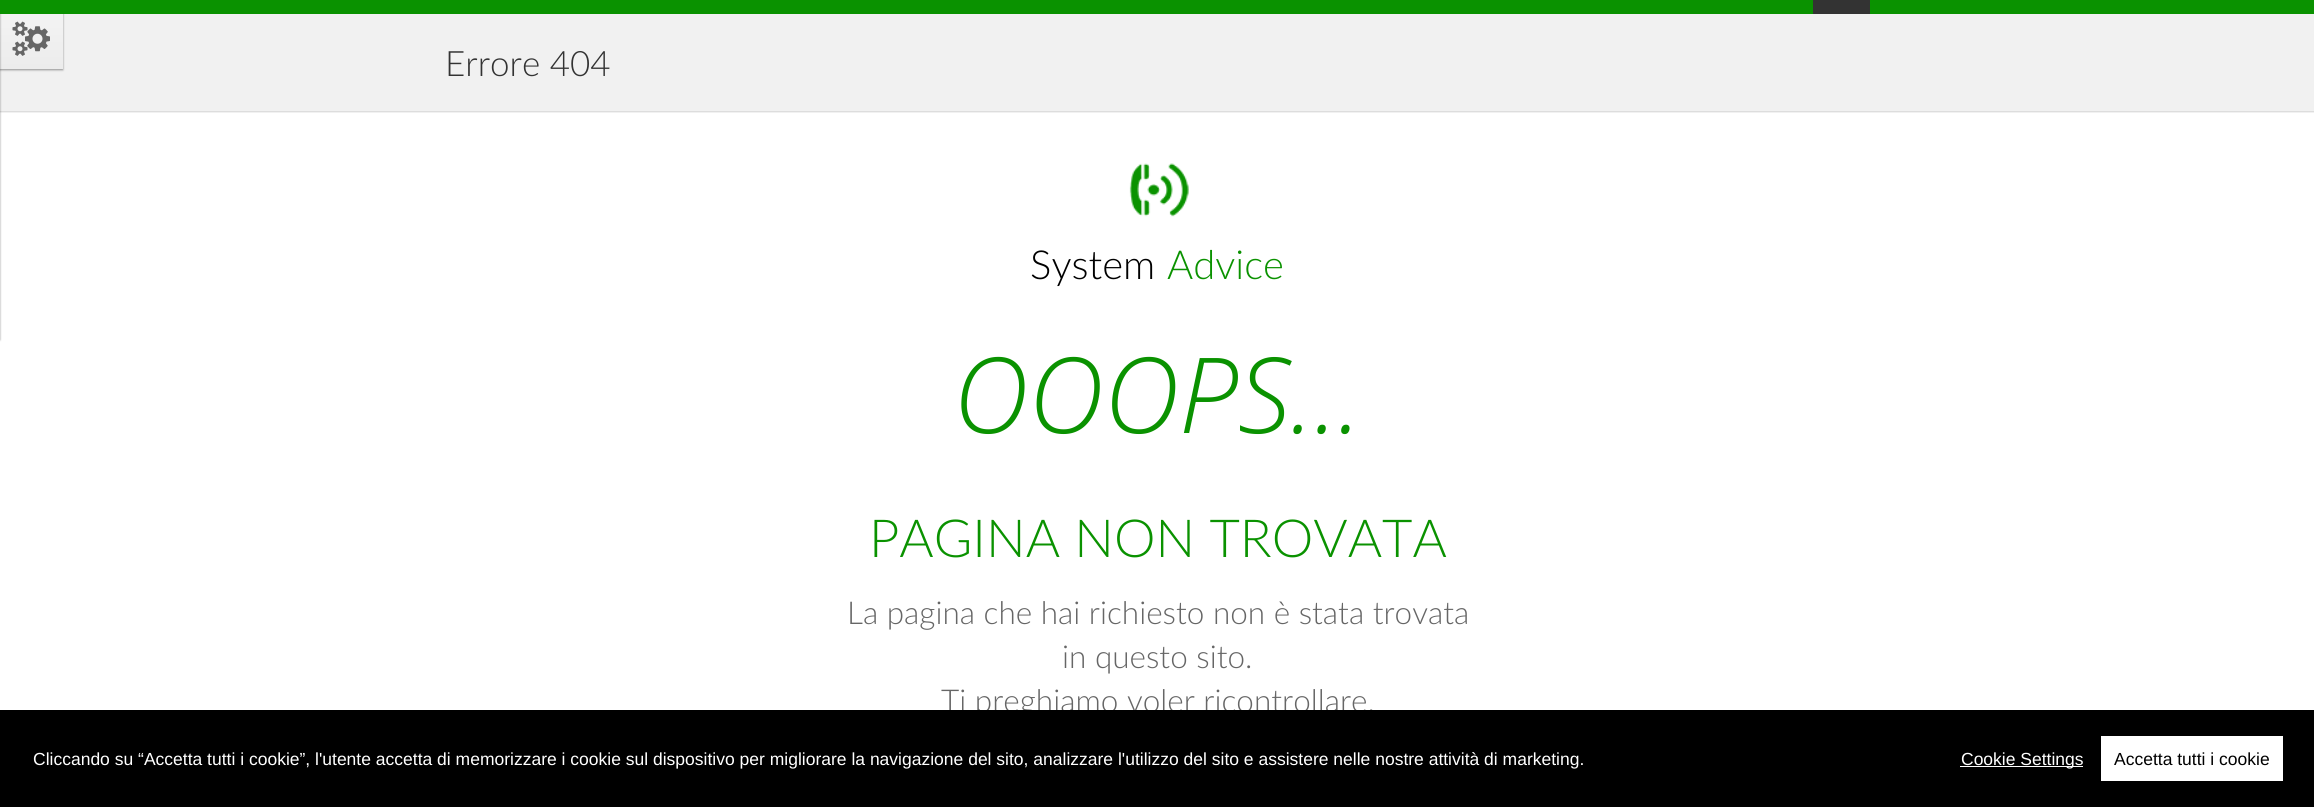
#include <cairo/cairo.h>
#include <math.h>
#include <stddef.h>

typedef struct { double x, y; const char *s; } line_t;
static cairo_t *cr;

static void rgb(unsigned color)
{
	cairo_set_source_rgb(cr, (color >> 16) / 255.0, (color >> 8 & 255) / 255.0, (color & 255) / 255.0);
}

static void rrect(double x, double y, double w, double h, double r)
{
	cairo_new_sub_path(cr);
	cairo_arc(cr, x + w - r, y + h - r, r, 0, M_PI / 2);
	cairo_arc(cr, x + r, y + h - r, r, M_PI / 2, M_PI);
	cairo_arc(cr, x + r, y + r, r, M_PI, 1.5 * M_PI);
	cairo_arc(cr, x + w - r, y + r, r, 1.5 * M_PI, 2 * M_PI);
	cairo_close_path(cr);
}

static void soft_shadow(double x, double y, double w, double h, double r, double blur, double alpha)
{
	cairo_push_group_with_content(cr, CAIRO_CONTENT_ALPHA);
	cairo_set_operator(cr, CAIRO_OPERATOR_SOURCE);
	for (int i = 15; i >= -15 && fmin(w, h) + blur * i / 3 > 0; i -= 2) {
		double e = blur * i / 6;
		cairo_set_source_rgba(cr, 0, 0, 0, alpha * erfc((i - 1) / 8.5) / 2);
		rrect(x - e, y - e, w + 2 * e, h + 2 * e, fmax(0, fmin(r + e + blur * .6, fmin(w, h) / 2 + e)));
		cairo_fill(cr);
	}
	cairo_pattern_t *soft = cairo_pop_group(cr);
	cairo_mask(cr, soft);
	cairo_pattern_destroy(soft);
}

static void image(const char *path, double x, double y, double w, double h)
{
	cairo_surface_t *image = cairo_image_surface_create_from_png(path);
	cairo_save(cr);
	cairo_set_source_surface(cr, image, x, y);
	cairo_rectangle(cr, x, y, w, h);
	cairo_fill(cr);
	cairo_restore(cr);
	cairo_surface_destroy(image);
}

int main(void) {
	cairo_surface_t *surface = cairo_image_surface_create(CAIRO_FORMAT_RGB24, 2314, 807);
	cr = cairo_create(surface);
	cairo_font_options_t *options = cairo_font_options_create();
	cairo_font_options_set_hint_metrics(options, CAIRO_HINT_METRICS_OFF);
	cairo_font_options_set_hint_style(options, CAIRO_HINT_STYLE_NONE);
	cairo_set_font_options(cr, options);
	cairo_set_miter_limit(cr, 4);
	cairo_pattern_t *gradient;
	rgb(0xffffff);
	cairo_paint(cr);
	rgb(0xf1f1f1);
	cairo_rectangle(cr, 0, 14, 2314, 99);
	cairo_fill(cr);
	rgb(0x000000);
	soft_shadow(0, 10, 63, 60, 0, 1, 0.4);
	gradient = cairo_pattern_create_linear(31, 69, 31, 9);
	cairo_pattern_add_color_stop_rgba(gradient, 0, 0.925, 0.925, 0.925, 1);
	cairo_pattern_add_color_stop_rgba(gradient, 1, 0.957, 0.957, 0.957, 1);
	cairo_set_source(cr, gradient);
	cairo_pattern_destroy(gradient);
	cairo_rectangle(cr, 0, 14, 63, 55);
	cairo_fill(cr);
	rgb(0xdddddd);
	cairo_rectangle(cr, 0, 111, 2314, 1);
	cairo_fill(cr);
	rgb(0x000000);
	soft_shadow(-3, 10, 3, 330, 0, 1, 0.4);
	rgb(0x0a9200);
	cairo_rectangle(cr, 0, 0, 2314, 14);
	cairo_fill(cr);
	rgb(0x333333);
	cairo_rectangle(cr, 1813, 0, 57, 14);
	cairo_fill(cr);
	image("img/1.png", 12, 21, 38, 35);
	image("img/2.png", 1129, 163, 60, 54);
	cairo_select_font_face(cr, "Lato Light", CAIRO_FONT_SLANT_NORMAL, CAIRO_FONT_WEIGHT_NORMAL);
	cairo_set_font_size(cr, 35);
	cairo_move_to(cr, 445, 76);
	cairo_show_text(cr, "Errore 404");
	cairo_set_font_size(cr, 40);
	rgb(0x000000);
	cairo_move_to(cr, 1030, 279);
	cairo_show_text(cr, "System");
	rgb(0x0a9200);
	cairo_move_to(cr, 1167, 279);
	cairo_show_text(cr, "Advice");
	cairo_select_font_face(cr, "Open Sans Light", CAIRO_FONT_SLANT_ITALIC, CAIRO_FONT_WEIGHT_NORMAL);
	cairo_set_font_size(cr, 105);
	cairo_move_to(cr, 953, 433);
	cairo_show_text(cr, "OOOPS...");
	cairo_select_font_face(cr, "Lato Light", CAIRO_FONT_SLANT_NORMAL, CAIRO_FONT_WEIGHT_NORMAL);
	cairo_set_font_size(cr, 52.5);
	cairo_move_to(cr, 869, 557);
	cairo_show_text(cr, "PAGINA NON TROVATA");
	cairo_set_font_size(cr, 31.5);
	rgb(0x666666);
	{
		static const line_t items[] = {
			{847, 624, "La pagina che hai richiesto non è stata trovata"},
			{1062, 668, "in questo sito."},
			{941, 712, "Ti preghiamo voler ricontrollare."},
		};
		for (size_t i = 0; i < sizeof items / sizeof *items; i++) {
			cairo_move_to(cr, items[i].x, items[i].y);
			cairo_show_text(cr, items[i].s);
		}
	}
	rgb(0x000000);
	cairo_rectangle(cr, 0, 710, 2314, 97);
	cairo_fill(cr);
	cairo_select_font_face(cr, "Liberation Sans", CAIRO_FONT_SLANT_NORMAL, CAIRO_FONT_WEIGHT_NORMAL);
	cairo_set_font_size(cr, 17.5);
	rgb(0xffffff);
	cairo_move_to(cr, 33, 765);
	cairo_show_text(cr, "Cliccando su “Accetta tutti i cookie”, l'utente accetta di memorizzare i cookie sul dispositivo per migliorare la navigazione del sito, analizzare l'utilizzo del sito e assistere nelle nostre attività di marketing.");
	cairo_rectangle(cr, 1960, 766, 123, 1);
	cairo_fill(cr);
	cairo_move_to(cr, 1961, 765);
	cairo_show_text(cr, "Cookie Settings");
	cairo_rectangle(cr, 2101, 736, 182, 45);
	cairo_fill(cr);
	rgb(0x000000);
	cairo_move_to(cr, 2114, 765);
	cairo_show_text(cr, "Accetta tutti i cookie");
	cairo_surface_write_to_png(surface, "page.png");
	cairo_font_options_destroy(options);
	cairo_destroy(cr);
	cairo_surface_destroy(surface);
	return 0;
}
